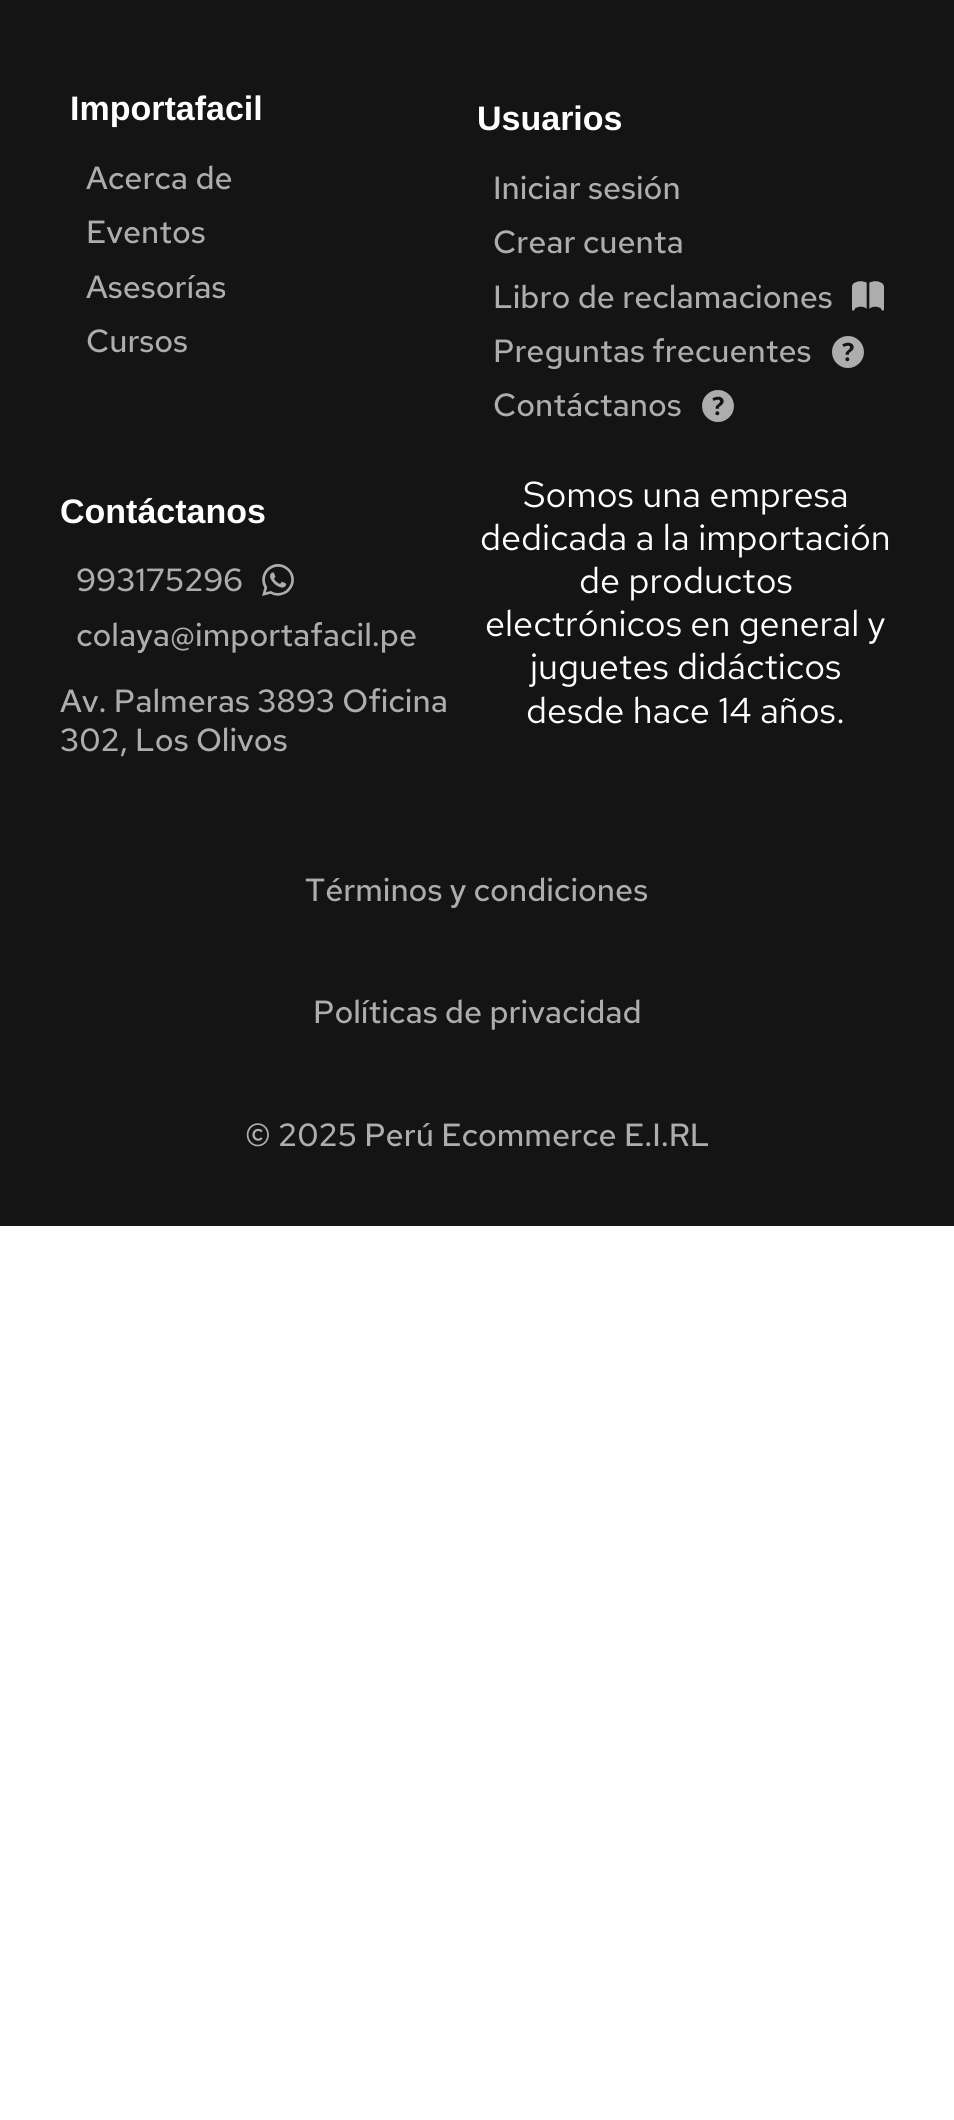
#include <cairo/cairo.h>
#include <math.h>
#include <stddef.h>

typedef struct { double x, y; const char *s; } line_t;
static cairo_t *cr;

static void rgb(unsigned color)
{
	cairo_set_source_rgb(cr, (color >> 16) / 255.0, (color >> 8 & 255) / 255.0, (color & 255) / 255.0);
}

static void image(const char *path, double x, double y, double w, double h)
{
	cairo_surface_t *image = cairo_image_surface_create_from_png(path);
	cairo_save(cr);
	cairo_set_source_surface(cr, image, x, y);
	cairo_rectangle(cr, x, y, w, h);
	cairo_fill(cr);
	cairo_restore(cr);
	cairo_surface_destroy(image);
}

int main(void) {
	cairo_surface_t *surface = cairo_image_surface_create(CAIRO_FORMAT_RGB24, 954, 2120);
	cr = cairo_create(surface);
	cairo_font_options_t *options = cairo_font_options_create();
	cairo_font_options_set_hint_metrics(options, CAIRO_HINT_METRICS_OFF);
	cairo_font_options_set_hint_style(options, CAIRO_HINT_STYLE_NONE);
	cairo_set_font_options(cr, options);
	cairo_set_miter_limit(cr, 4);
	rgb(0xffffff);
	cairo_paint(cr);
	rgb(0x141414);
	cairo_rectangle(cr, 0, 0, 954, 1226);
	cairo_fill(cr);
	image("img/1.png", 852, 281, 32, 30);
	image("img/2.png", 832, 336, 32, 32);
	image("img/2.png", 702, 390, 32, 32);
	image("img/3.png", 262, 564, 32, 32);
	cairo_select_font_face(cr, "Liberation Sans", CAIRO_FONT_SLANT_NORMAL, CAIRO_FONT_WEIGHT_BOLD);
	cairo_set_font_size(cr, 34);
	rgb(0xffffff);
	cairo_move_to(cr, 70, 120);
	cairo_show_text(cr, "Importafacil");
	cairo_select_font_face(cr, "Red Hat Text Medium", CAIRO_FONT_SLANT_NORMAL, CAIRO_FONT_WEIGHT_NORMAL);
	cairo_set_font_size(cr, 32);
	rgb(0xadadad);
	{
		static const line_t items[] = {
			{86, 189, "Acerca de"},
			{86, 243, "Eventos"},
			{86, 298, "Asesorías"},
			{86, 352, "Cursos"},
		};
		for (size_t i = 0; i < sizeof items / sizeof *items; i++) {
			cairo_move_to(cr, items[i].x, items[i].y);
			cairo_show_text(cr, items[i].s);
		}
	}
	cairo_select_font_face(cr, "Liberation Sans", CAIRO_FONT_SLANT_NORMAL, CAIRO_FONT_WEIGHT_BOLD);
	cairo_set_font_size(cr, 34);
	rgb(0xffffff);
	cairo_move_to(cr, 477, 130);
	cairo_show_text(cr, "Usuarios");
	cairo_select_font_face(cr, "Red Hat Text Medium", CAIRO_FONT_SLANT_NORMAL, CAIRO_FONT_WEIGHT_NORMAL);
	cairo_set_font_size(cr, 32);
	rgb(0xadadad);
	{
		static const line_t items[] = {
			{493, 199, "Iniciar sesión"},
			{493, 253, "Crear cuenta"},
			{493, 308, "Libro de reclamaciones"},
			{493, 362, "Preguntas frecuentes"},
			{493, 416, "Contáctanos"},
		};
		for (size_t i = 0; i < sizeof items / sizeof *items; i++) {
			cairo_move_to(cr, items[i].x, items[i].y);
			cairo_show_text(cr, items[i].s);
		}
	}
	cairo_select_font_face(cr, "Liberation Sans", CAIRO_FONT_SLANT_NORMAL, CAIRO_FONT_WEIGHT_BOLD);
	cairo_set_font_size(cr, 34);
	rgb(0xffffff);
	cairo_move_to(cr, 60, 523);
	cairo_show_text(cr, "Contáctanos");
	cairo_select_font_face(cr, "Red Hat Text Medium", CAIRO_FONT_SLANT_NORMAL, CAIRO_FONT_WEIGHT_NORMAL);
	cairo_set_font_size(cr, 32);
	rgb(0xadadad);
	{
		static const line_t items[] = {
			{76, 591, "993175296"},
			{76, 646, "colaya@importafacil.pe"},
			{60, 712, "Av. Palmeras 3893 Oficina"},
			{60, 751, "302, Los Olivos"},
		};
		for (size_t i = 0; i < sizeof items / sizeof *items; i++) {
			cairo_move_to(cr, items[i].x, items[i].y);
			cairo_show_text(cr, items[i].s);
		}
	}
	cairo_select_font_face(cr, "Red Hat Text", CAIRO_FONT_SLANT_NORMAL, CAIRO_FONT_WEIGHT_NORMAL);
	cairo_set_font_size(cr, 36);
	rgb(0xffffff);
	{
		static const line_t items[] = {
			{523, 507, "Somos una empresa"},
			{480, 550, "dedicada a la importación"},
			{579, 593, "de productos"},
			{485, 636, "electrónicos en general y"},
			{530, 679, "juguetes didácticos"},
			{526, 723, "desde hace 14 años."},
		};
		for (size_t i = 0; i < sizeof items / sizeof *items; i++) {
			cairo_move_to(cr, items[i].x, items[i].y);
			cairo_show_text(cr, items[i].s);
		}
	}
	cairo_select_font_face(cr, "Red Hat Text Medium", CAIRO_FONT_SLANT_NORMAL, CAIRO_FONT_WEIGHT_NORMAL);
	cairo_set_font_size(cr, 32);
	rgb(0xadadad);
	{
		static const line_t items[] = {
			{305, 901, "Términos y condiciones"},
			{313, 1023, "Políticas de privacidad"},
			{245, 1146, "© 2025 Perú Ecommerce E.I.RL"},
		};
		for (size_t i = 0; i < sizeof items / sizeof *items; i++) {
			cairo_move_to(cr, items[i].x, items[i].y);
			cairo_show_text(cr, items[i].s);
		}
	}
	cairo_surface_write_to_png(surface, "page.png");
	cairo_font_options_destroy(options);
	cairo_destroy(cr);
	cairo_surface_destroy(surface);
	return 0;
}
